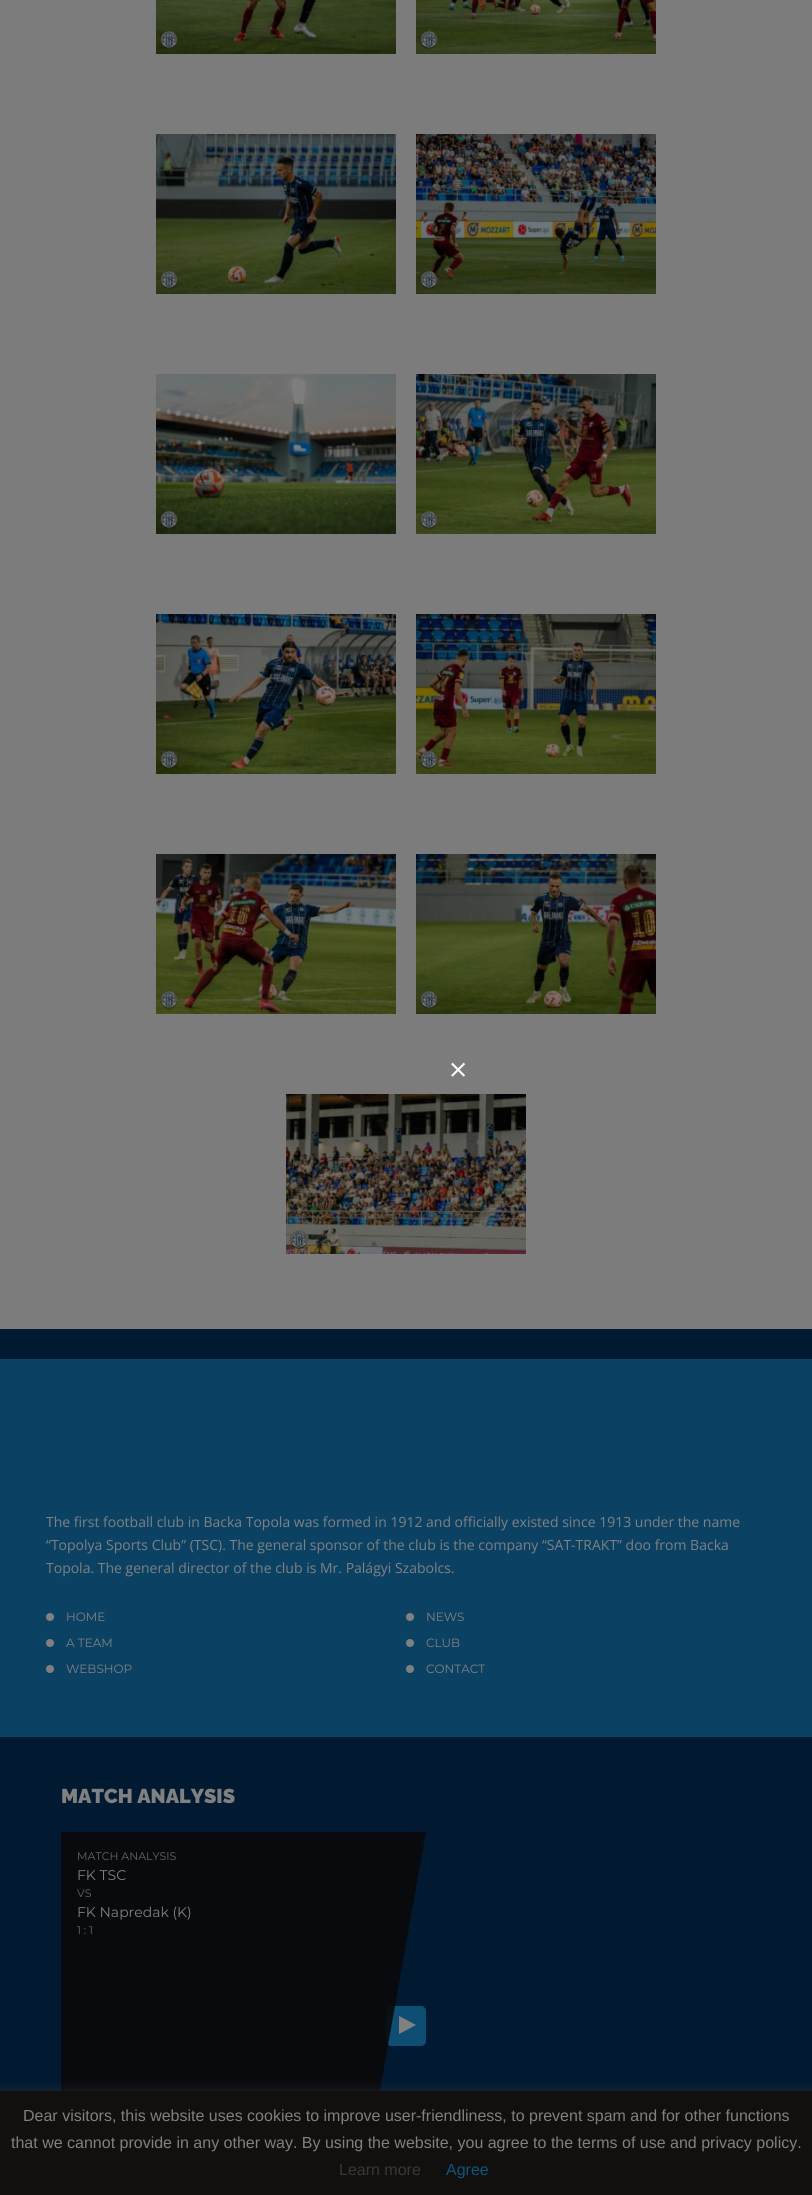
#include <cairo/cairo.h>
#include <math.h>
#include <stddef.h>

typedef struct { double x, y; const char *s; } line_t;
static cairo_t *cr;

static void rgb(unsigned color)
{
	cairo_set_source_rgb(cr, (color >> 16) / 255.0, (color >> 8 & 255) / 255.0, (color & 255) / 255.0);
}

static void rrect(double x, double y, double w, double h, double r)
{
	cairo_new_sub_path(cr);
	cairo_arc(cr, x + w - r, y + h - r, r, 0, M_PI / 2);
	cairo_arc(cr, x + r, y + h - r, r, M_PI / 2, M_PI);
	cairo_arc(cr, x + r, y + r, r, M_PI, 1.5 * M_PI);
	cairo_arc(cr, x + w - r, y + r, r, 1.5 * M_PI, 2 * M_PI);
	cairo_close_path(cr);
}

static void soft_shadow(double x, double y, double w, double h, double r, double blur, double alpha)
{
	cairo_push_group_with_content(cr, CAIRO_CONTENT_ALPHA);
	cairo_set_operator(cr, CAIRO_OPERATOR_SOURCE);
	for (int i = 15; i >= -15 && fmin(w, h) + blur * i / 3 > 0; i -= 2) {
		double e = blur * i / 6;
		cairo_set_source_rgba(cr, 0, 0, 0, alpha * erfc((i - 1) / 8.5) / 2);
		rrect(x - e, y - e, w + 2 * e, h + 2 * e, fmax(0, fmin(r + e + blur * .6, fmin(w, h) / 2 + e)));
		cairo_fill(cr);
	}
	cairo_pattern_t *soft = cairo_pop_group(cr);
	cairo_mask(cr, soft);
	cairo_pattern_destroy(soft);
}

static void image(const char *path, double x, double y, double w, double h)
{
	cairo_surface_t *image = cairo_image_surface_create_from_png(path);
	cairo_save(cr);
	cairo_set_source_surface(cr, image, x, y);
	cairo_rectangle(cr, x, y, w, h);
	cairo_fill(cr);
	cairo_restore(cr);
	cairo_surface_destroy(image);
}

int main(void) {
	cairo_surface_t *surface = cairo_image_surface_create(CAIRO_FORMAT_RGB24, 812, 2195);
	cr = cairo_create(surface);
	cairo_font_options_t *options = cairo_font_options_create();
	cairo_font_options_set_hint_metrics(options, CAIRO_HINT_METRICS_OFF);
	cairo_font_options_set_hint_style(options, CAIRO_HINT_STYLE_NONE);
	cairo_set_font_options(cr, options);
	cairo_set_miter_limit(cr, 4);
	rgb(0x7c7c7c);
	cairo_paint(cr);
	image("img/1.png", 156, 0, 240, 54);
	image("img/2.png", 416, 0, 240, 54);
	image("img/3.png", 156, 134, 240, 160);
	image("img/4.png", 416, 134, 240, 160);
	image("img/5.png", 156, 374, 240, 160);
	image("img/6.png", 416, 374, 240, 160);
	image("img/7.png", 156, 614, 240, 160);
	image("img/8.png", 416, 614, 240, 160);
	image("img/9.png", 156, 854, 240, 160);
	image("img/10.png", 416, 854, 240, 160);
	image("img/11.png", 286, 1094, 240, 160);
	rgb(0x011931);
	cairo_rectangle(cr, 0, 1329, 812, 762);
	cairo_fill(cr);
	rgb(0x0b4264);
	cairo_rectangle(cr, 0, 1359, 812, 378);
	cairo_fill(cr);
	rgb(0x808080);
	cairo_arc(cr, 50, 1617, 4, 0, 2 * M_PI);
	cairo_fill(cr);
	cairo_arc(cr, 410, 1617, 4, 0, 2 * M_PI);
	cairo_fill(cr);
	cairo_arc(cr, 50, 1643, 4, 0, 2 * M_PI);
	cairo_fill(cr);
	cairo_arc(cr, 410, 1643, 4, 0, 2 * M_PI);
	cairo_fill(cr);
	cairo_arc(cr, 50, 1669, 4, 0, 2 * M_PI);
	cairo_fill(cr);
	cairo_arc(cr, 410, 1669, 4, 0, 2 * M_PI);
	cairo_fill(cr);
	rgb(0x0e4e73);
	rrect(386, 2006, 40, 40, 5);
	cairo_fill(cr);
	rgb(0x808080);
	cairo_new_path(cr);
	cairo_move_to(cr, 399, 2034);
	cairo_line_to(cr, 399, 2016);
	cairo_line_to(cr, 416, 2025);
	cairo_close_path(cr);
	cairo_fill(cr);
	cairo_save(cr);
	cairo_rectangle(cr, 61, 1832, 690, 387);
	cairo_clip(cr);
	cairo_set_source_rgba(cr, 0.039, 0.039, 0.039, 0.9);
	cairo_new_path(cr);
	cairo_move_to(cr, -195, 1832);
	cairo_line_to(cr, 426, 1832);
	cairo_line_to(cr, 357, 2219);
	cairo_line_to(cr, -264, 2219);
	cairo_close_path(cr);
	cairo_fill(cr);
	cairo_restore(cr);
	rgb(0x565656);
	soft_shadow(0, 2090, 812, 104, 0, 5, 0.3);
	rgb(0x12100f);
	cairo_rectangle(cr, 0, 2091, 812, 104);
	cairo_fill(cr);
	cairo_select_font_face(cr, "Open Sans", CAIRO_FONT_SLANT_NORMAL, CAIRO_FONT_WEIGHT_NORMAL);
	cairo_set_font_size(cr, 32);
	rgb(0xfafafa);
	cairo_move_to(cr, 449, 1081);
	cairo_show_text(cr, "×");
	cairo_set_font_size(cr, 14);
	rgb(0x808080);
	{
		static const line_t items[] = {
			{46, 1527, "The first football club in Backa Topola was formed in 1912 and officially existed since 1913 under the name"},
			{46, 1550, "“Topolya Sports Club” (TSC). The general sponsor of the club is the company “SAT-TRAKT” doo from Backa"},
			{46, 1573, "Topola. The general director of the club is Mr. Palágyi Szabolcs."},
		};
		for (size_t i = 0; i < sizeof items / sizeof *items; i++) {
			cairo_move_to(cr, items[i].x, items[i].y);
			cairo_show_text(cr, items[i].s);
		}
	}
	cairo_select_font_face(cr, "Montserrat", CAIRO_FONT_SLANT_NORMAL, CAIRO_FONT_WEIGHT_NORMAL);
	cairo_set_font_size(cr, 12);
	{
		static const line_t items[] = {
			{66, 1621, "HOME"},
			{426, 1621, "NEWS"},
			{66, 1647, "A TEAM"},
			{426, 1647, "CLUB"},
			{66, 1673, "WEBSHOP"},
			{426, 1673, "CONTACT"},
		};
		for (size_t i = 0; i < sizeof items / sizeof *items; i++) {
			cairo_move_to(cr, items[i].x, items[i].y);
			cairo_show_text(cr, items[i].s);
		}
	}
	cairo_select_font_face(cr, "Raleway Black", CAIRO_FONT_SLANT_NORMAL, CAIRO_FONT_WEIGHT_NORMAL);
	cairo_set_font_size(cr, 20);
	cairo_move_to(cr, 61, 1803);
	cairo_show_text(cr, "MATCH ANALYSIS");
	cairo_select_font_face(cr, "Montserrat", CAIRO_FONT_SLANT_NORMAL, CAIRO_FONT_WEIGHT_NORMAL);
	cairo_set_font_size(cr, 11);
	rgb(0x666666);
	cairo_move_to(cr, 77, 1860);
	cairo_show_text(cr, "MATCH ANALYSIS");
	cairo_set_font_size(cr, 14);
	rgb(0x808080);
	cairo_move_to(cr, 77, 1880);
	cairo_show_text(cr, "FK TSC");
	cairo_set_font_size(cr, 11);
	rgb(0x666666);
	cairo_move_to(cr, 77, 1897);
	cairo_show_text(cr, "VS");
	cairo_set_font_size(cr, 14);
	rgb(0x808080);
	cairo_move_to(cr, 77, 1917);
	cairo_show_text(cr, "FK Napredak (K)");
	cairo_set_font_size(cr, 11);
	rgb(0x666666);
	cairo_move_to(cr, 77, 1934);
	cairo_show_text(cr, "1 : 1");
	cairo_select_font_face(cr, "Liberation Sans", CAIRO_FONT_SLANT_NORMAL, CAIRO_FONT_WEIGHT_NORMAL);
	cairo_set_font_size(cr, 16);
	rgb(0x808080);
	cairo_move_to(cr, 23, 2121);
	cairo_show_text(cr, "Dear visitors, this website uses cookies to improve user-friendliness, to prevent spam and for other functions");
	cairo_move_to(cr, 11, 2148);
	cairo_show_text(cr, "that we cannot provide in any other way. By using the website, you agree to the terms of use and privacy policy.");
	rgb(0x373737);
	cairo_move_to(cr, 339, 2175);
	cairo_show_text(cr, "Learn more");
	rgb(0x0f547a);
	cairo_move_to(cr, 446, 2175);
	cairo_show_text(cr, "Agree");
	cairo_surface_write_to_png(surface, "page.png");
	cairo_font_options_destroy(options);
	cairo_destroy(cr);
	cairo_surface_destroy(surface);
	return 0;
}
